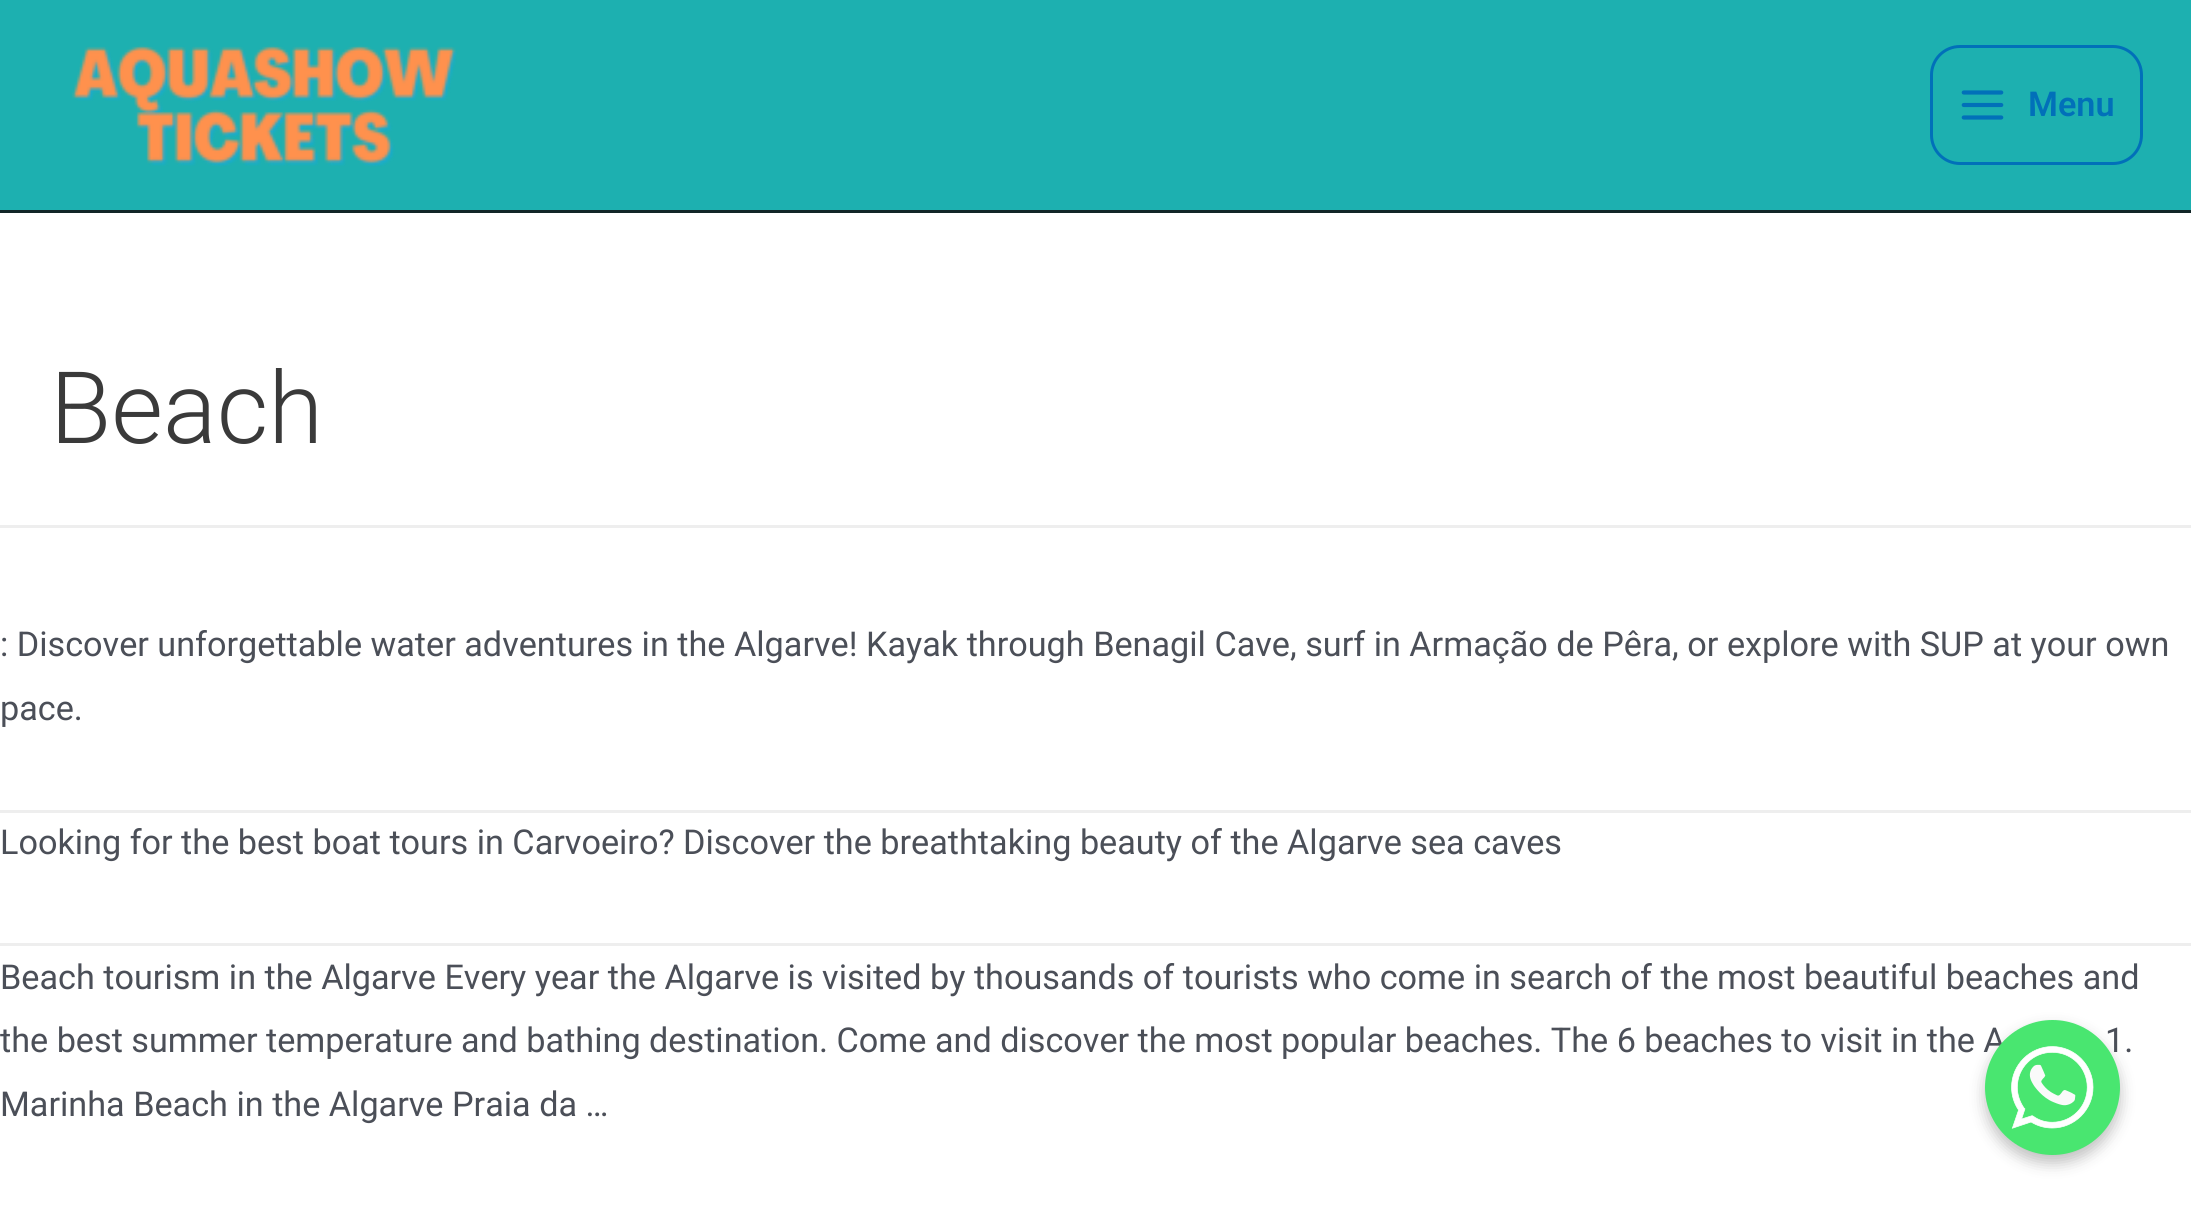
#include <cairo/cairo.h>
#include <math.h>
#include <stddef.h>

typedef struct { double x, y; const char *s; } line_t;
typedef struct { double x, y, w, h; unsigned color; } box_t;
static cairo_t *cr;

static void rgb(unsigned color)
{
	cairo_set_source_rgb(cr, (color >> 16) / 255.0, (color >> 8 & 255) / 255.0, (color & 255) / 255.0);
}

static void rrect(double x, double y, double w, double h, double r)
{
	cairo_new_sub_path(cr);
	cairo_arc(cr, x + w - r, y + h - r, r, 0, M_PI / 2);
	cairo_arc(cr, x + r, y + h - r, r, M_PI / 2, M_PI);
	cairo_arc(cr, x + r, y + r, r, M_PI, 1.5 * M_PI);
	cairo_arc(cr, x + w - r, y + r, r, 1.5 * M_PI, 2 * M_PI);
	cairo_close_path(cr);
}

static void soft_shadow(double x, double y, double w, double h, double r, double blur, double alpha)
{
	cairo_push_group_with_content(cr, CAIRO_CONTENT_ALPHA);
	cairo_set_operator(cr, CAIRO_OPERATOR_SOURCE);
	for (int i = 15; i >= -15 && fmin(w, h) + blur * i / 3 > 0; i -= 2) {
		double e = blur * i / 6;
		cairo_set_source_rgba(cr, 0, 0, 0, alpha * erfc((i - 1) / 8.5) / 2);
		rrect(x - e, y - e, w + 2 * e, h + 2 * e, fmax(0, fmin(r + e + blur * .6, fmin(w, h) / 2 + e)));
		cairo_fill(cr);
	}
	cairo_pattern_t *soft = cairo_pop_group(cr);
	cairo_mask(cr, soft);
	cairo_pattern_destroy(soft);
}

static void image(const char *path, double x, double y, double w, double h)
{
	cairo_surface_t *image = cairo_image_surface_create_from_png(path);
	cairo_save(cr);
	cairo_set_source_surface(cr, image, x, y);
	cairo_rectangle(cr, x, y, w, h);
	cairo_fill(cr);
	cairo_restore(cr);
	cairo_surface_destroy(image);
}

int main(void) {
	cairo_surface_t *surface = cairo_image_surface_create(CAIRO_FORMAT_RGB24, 2191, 1216);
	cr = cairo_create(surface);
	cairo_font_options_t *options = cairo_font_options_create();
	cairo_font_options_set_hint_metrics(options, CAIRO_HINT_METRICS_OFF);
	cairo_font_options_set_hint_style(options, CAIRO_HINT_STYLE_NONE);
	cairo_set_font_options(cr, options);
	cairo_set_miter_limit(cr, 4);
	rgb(0xffffff);
	cairo_paint(cr);
	rgb(0x1db0b0);
	cairo_rectangle(cr, 0, 0, 2191, 210);
	cairo_fill(cr);
	rgb(0x112627);
	cairo_rectangle(cr, 0, 210, 2191, 3);
	cairo_fill(cr);
	image("img/1.png", 72, 45, 385, 122);
	rrect(1931.5, 46.5, 210, 117, 28.5);
	rgb(0x0170b9);
	cairo_set_line_width(cr, 3);
	cairo_stroke(cr);
	image("img/2.png", 1961, 90, 43, 30);
	{
		static const box_t items[] = {
			{0, 525, 2191, 3, 0xeeeeee},
			{0, 810, 2191, 3, 0xeeeeee},
			{0, 943, 2191, 3, 0xeeeeee},
		};
		for (size_t i = 0; i < sizeof items / sizeof *items; i++) {
			rgb(items[i].color);
			cairo_rectangle(cr, items[i].x, items[i].y, items[i].w, items[i].h);
			cairo_fill(cr);
		}
	}
	rgb(0x000000);
	soft_shadow(1985, 1028, 135, 135, 67.5, 7.5, 0.25);
	cairo_select_font_face(cr, "Roboto SemiBold", CAIRO_FONT_SLANT_NORMAL, CAIRO_FONT_WEIGHT_NORMAL);
	cairo_set_font_size(cr, 34.2);
	rgb(0x0170b9);
	cairo_move_to(cr, 2028, 116);
	cairo_show_text(cr, "Menu");
	cairo_select_font_face(cr, "Roboto Light", CAIRO_FONT_SLANT_NORMAL, CAIRO_FONT_WEIGHT_NORMAL);
	cairo_set_font_size(cr, 100);
	rgb(0x3a3a3a);
	cairo_move_to(cr, 50, 443);
	cairo_show_text(cr, "Beach");
	cairo_select_font_face(cr, "Roboto", CAIRO_FONT_SLANT_NORMAL, CAIRO_FONT_WEIGHT_NORMAL);
	cairo_set_font_size(cr, 34.2);
	rgb(0x4b4f58);
	{
		static const line_t items[] = {
			{0, 656, ": Discover unforgettable water adventures in the Algarve! Kayak through Benagil Cave, surf in Armação de Pêra, or explore with SUP at your own"},
			{0, 720, "pace."},
			{0, 854, "Looking for the best boat tours in Carvoeiro? Discover the breathtaking beauty of the Algarve sea caves"},
			{0, 989, "Beach tourism in the Algarve Every year the Algarve is visited by thousands of tourists who come in search of the most beautiful beaches and"},
			{0, 1052, "the best summer temperature and bathing destination. Come and discover the most popular beaches. The 6 beaches to visit in the A"},
			{2105, 1052, "1."},
			{0, 1116, "Marinha Beach in the Algarve Praia da …"},
		};
		for (size_t i = 0; i < sizeof items / sizeof *items; i++) {
			cairo_move_to(cr, items[i].x, items[i].y);
			cairo_show_text(cr, items[i].s);
		}
	}
	image("img/3.png", 1985, 1020, 135, 135);
	cairo_surface_write_to_png(surface, "page.png");
	cairo_font_options_destroy(options);
	cairo_destroy(cr);
	cairo_surface_destroy(surface);
	return 0;
}
